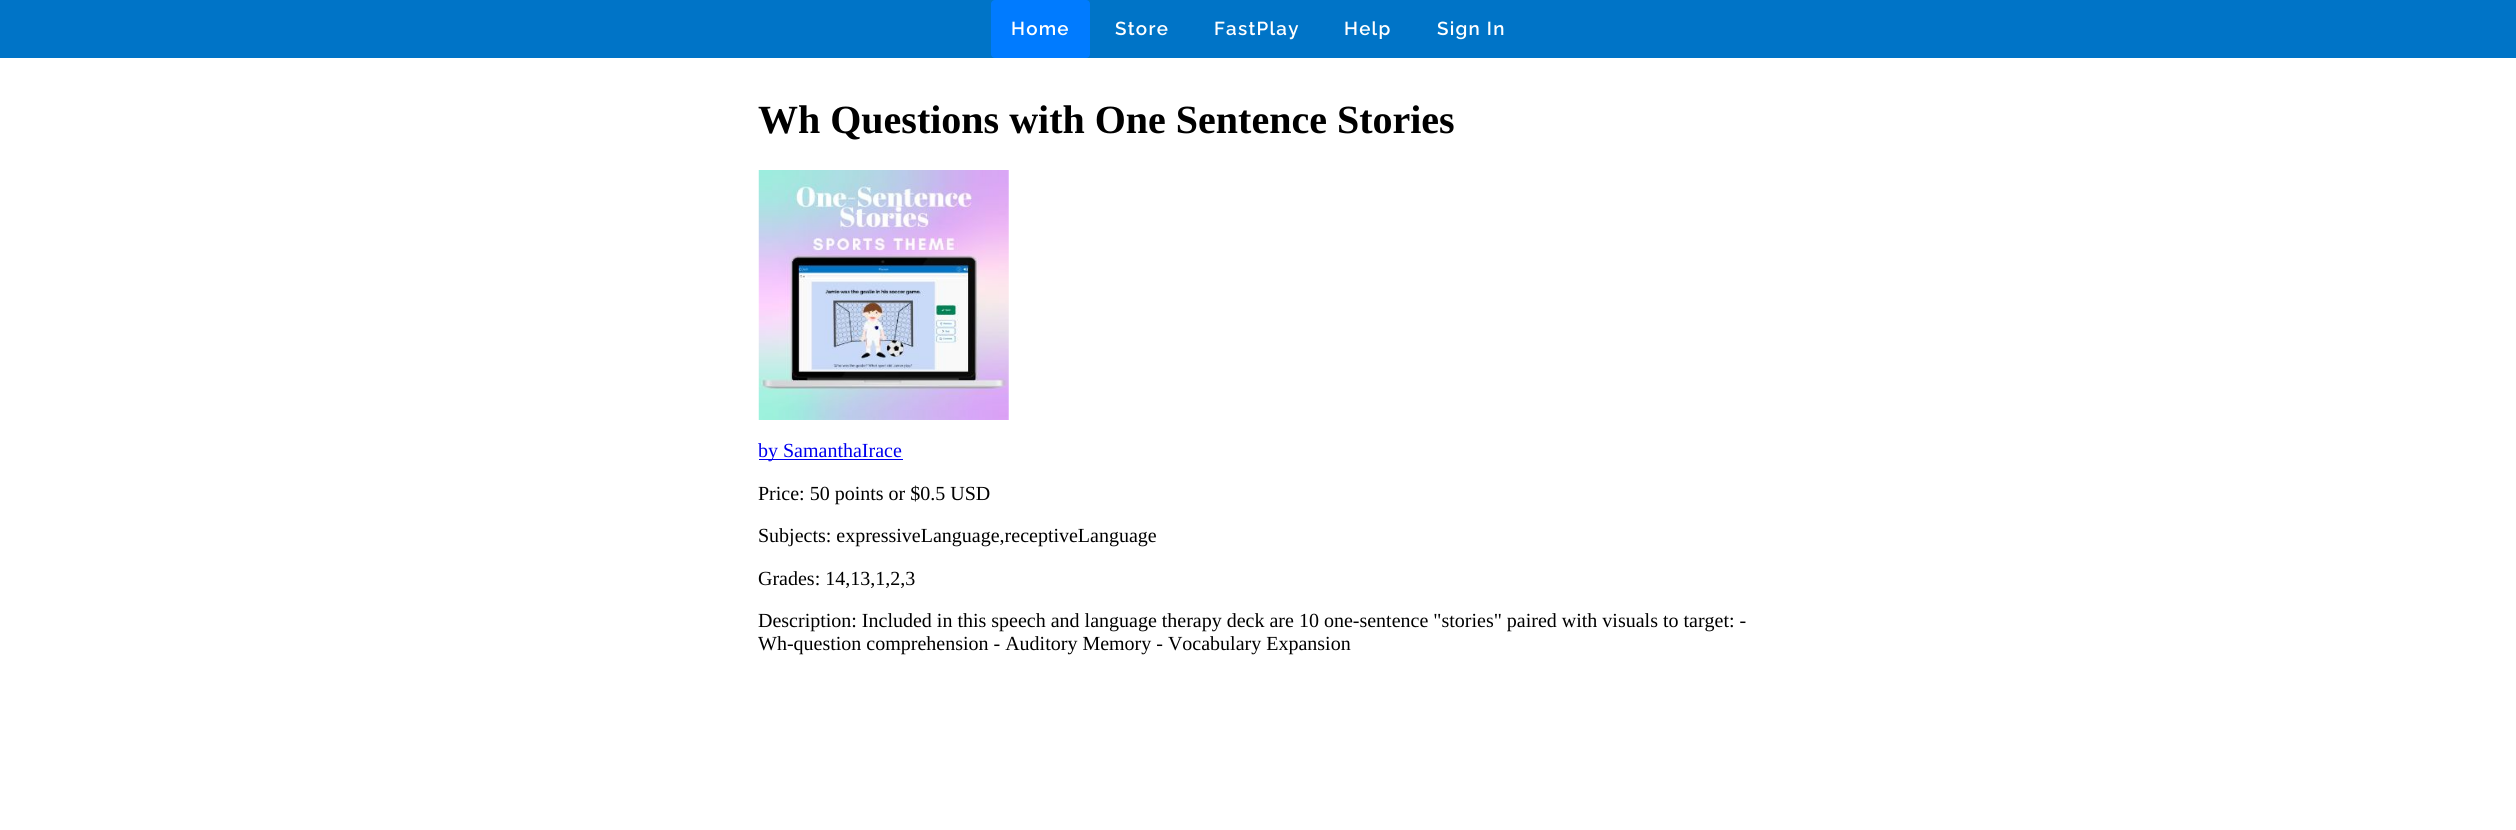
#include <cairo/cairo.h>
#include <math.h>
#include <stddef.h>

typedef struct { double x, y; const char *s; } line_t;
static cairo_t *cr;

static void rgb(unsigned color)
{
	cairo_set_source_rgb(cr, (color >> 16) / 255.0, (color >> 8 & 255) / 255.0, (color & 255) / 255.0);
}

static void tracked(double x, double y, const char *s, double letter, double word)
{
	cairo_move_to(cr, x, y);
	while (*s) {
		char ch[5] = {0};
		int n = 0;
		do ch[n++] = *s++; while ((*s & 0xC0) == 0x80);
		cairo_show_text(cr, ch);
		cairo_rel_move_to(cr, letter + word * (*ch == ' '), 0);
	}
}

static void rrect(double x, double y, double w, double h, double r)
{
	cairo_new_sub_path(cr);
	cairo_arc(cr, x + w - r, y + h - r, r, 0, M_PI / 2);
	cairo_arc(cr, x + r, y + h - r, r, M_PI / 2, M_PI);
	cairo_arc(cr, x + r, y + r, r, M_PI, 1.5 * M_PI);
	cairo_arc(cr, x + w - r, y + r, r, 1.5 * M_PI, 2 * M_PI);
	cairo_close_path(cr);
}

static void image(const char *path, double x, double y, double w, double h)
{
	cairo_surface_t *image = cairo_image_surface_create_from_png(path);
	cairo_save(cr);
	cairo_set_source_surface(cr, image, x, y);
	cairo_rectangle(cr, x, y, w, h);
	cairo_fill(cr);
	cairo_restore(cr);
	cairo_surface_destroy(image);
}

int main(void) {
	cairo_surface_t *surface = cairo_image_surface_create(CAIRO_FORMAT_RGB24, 2516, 830);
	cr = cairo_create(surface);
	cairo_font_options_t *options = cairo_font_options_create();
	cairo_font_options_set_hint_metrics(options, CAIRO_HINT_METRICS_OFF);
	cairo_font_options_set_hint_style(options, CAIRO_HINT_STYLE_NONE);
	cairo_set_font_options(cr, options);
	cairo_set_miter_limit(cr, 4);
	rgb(0xffffff);
	cairo_paint(cr);
	rgb(0x0074c7);
	cairo_rectangle(cr, 0, 0, 2516, 58);
	cairo_fill(cr);
	rgb(0x007bff);
	rrect(991, 0, 99, 58, 4);
	cairo_fill(cr);
	image("img/1.png", 758, 170, 251, 250);
	rgb(0x0000ee);
	cairo_rectangle(cr, 759, 459, 144, 1);
	cairo_fill(cr);
	cairo_select_font_face(cr, "Raleway SemiBold", CAIRO_FONT_SLANT_NORMAL, CAIRO_FONT_WEIGHT_NORMAL);
	cairo_set_font_size(cr, 18.75);
	rgb(0xffffff);
	{
		static const line_t items[] = {
			{1011, 35, "Home"},
			{1115, 35, "Store"},
			{1214, 35, "FastPlay"},
			{1344, 35, "Help"},
			{1437, 35, "Sign In"},
		};
		for (size_t i = 0; i < sizeof items / sizeof *items; i++) {
			tracked(items[i].x, items[i].y, items[i].s, 1.25, 0);
		}
	}
	cairo_select_font_face(cr, "Liberation Serif", CAIRO_FONT_SLANT_NORMAL, CAIRO_FONT_WEIGHT_BOLD);
	cairo_set_font_size(cr, 40);
	rgb(0x000000);
	cairo_move_to(cr, 758, 133);
	cairo_show_text(cr, "Wh Questions with One Sentence Stories");
	cairo_select_font_face(cr, "Liberation Serif", CAIRO_FONT_SLANT_NORMAL, CAIRO_FONT_WEIGHT_NORMAL);
	cairo_set_font_size(cr, 20);
	rgb(0x0000ee);
	cairo_move_to(cr, 758, 457);
	cairo_show_text(cr, "by SamanthaIrace");
	rgb(0x000000);
	{
		static const line_t items[] = {
			{758, 500, "Price: 50 points or $0.5 USD"},
			{758, 542, "Subjects: expressiveLanguage,receptiveLanguage"},
			{758, 585, "Grades: 14,13,1,2,3"},
			{758, 627, "Description: Included in this speech and language therapy deck are 10 one-sentence \"stories\" paired with visuals to target: -"},
			{758, 650, "Wh-question comprehension - Auditory Memory - Vocabulary Expansion"},
		};
		for (size_t i = 0; i < sizeof items / sizeof *items; i++) {
			cairo_move_to(cr, items[i].x, items[i].y);
			cairo_show_text(cr, items[i].s);
		}
	}
	cairo_surface_write_to_png(surface, "page.png");
	cairo_font_options_destroy(options);
	cairo_destroy(cr);
	cairo_surface_destroy(surface);
	return 0;
}
